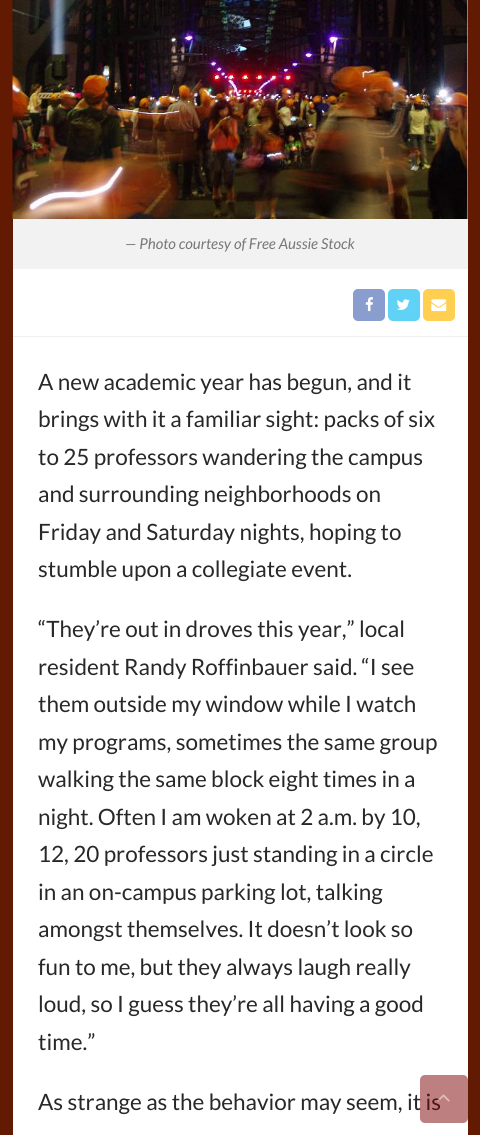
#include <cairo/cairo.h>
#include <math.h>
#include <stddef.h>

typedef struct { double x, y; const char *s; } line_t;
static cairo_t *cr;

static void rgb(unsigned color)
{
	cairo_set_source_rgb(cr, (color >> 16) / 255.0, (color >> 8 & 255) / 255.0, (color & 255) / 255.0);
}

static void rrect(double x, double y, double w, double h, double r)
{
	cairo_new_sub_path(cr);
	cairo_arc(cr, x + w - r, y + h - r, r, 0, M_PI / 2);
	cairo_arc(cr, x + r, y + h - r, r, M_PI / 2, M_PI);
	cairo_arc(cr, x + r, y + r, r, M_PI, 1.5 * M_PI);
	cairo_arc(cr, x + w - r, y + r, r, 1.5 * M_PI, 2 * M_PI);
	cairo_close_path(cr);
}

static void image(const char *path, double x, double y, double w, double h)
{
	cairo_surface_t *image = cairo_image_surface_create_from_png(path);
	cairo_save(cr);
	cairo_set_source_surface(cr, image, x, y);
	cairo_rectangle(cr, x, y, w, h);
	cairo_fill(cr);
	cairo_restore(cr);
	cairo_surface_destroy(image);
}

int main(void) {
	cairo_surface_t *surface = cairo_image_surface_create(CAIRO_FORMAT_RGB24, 480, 1135);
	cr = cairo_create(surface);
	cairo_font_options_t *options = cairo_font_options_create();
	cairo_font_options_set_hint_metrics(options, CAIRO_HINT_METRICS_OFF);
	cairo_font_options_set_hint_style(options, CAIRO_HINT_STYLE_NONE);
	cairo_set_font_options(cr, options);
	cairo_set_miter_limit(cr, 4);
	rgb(0x631a02);
	cairo_paint(cr);
	rgb(0xffffff);
	cairo_rectangle(cr, 13, 0, 455, 1135);
	cairo_fill(cr);
	image("img/1.png", 12, 0, 456, 219);
	rgb(0xf2f2f2);
	cairo_rectangle(cr, 13, 219, 455, 50);
	cairo_fill(cr);
	rgb(0xefefef);
	cairo_rectangle(cr, 13, 336, 455, 1);
	cairo_fill(cr);
	rgb(0x899dce);
	rrect(353, 289, 32, 32, 5);
	cairo_fill(cr);
	image("img/2.png", 365, 297, 8, 15);
	rgb(0x60d2f5);
	rrect(388, 289, 32, 32, 5);
	cairo_fill(cr);
	image("img/3.png", 396, 299, 14, 11);
	rgb(0xffcf51);
	rrect(423, 289, 32, 32, 5);
	cairo_fill(cr);
	image("img/4.png", 431, 299, 16, 13);
	cairo_select_font_face(cr, "Lato", CAIRO_FONT_SLANT_ITALIC, CAIRO_FONT_WEIGHT_NORMAL);
	cairo_set_font_size(cr, 15);
	rgb(0x777777);
	cairo_move_to(cr, 125, 249);
	cairo_show_text(cr, "— Photo courtesy of Free Aussie Stock");
	cairo_select_font_face(cr, "Lato", CAIRO_FONT_SLANT_NORMAL, CAIRO_FONT_WEIGHT_NORMAL);
	cairo_set_font_size(cr, 22.5);
	rgb(0x282828);
	{
		static const line_t items[] = {
			{38, 390, "A new academic year has begun, and it"},
			{38, 427, "brings with it a familiar sight: packs of six"},
			{38, 465, "to 25 professors wandering the campus"},
			{38, 502, "and surrounding neighborhoods on"},
			{38, 540, "Friday and Saturday nights, hoping to"},
			{38, 577, "stumble upon a collegiate event."},
			{38, 637, "“They’re out in droves this year,” local"},
			{38, 675, "resident Randy Roffinbauer said. “I see"},
			{38, 712, "them outside my window while I watch"},
			{38, 750, "my programs, sometimes the same group"},
			{38, 787, "walking the same block eight times in a"},
			{38, 825, "night. Often I am woken at 2 a.m. by 10,"},
			{38, 862, "12, 20 professors just standing in a circle"},
			{38, 900, "in an on-campus parking lot, talking"},
			{38, 937, "amongst themselves. It doesn’t look so"},
			{38, 975, "fun to me, but they always laugh really"},
			{38, 1012, "loud, so I guess they’re all having a good"},
			{38, 1050, "time.”"},
			{38, 1110, "As strange as the behavior may seem, it is"},
		};
		for (size_t i = 0; i < sizeof items / sizeof *items; i++) {
			cairo_move_to(cr, items[i].x, items[i].y);
			cairo_show_text(cr, items[i].s);
		}
	}
	cairo_set_source_rgba(cr, 0.486, 0, 0, 0.5);
	rrect(420, 1075, 48, 48, 5);
	cairo_fill(cr);
	image("img/5.png", 437, 1094, 13, 8);
	cairo_surface_write_to_png(surface, "page.png");
	cairo_font_options_destroy(options);
	cairo_destroy(cr);
	cairo_surface_destroy(surface);
	return 0;
}
